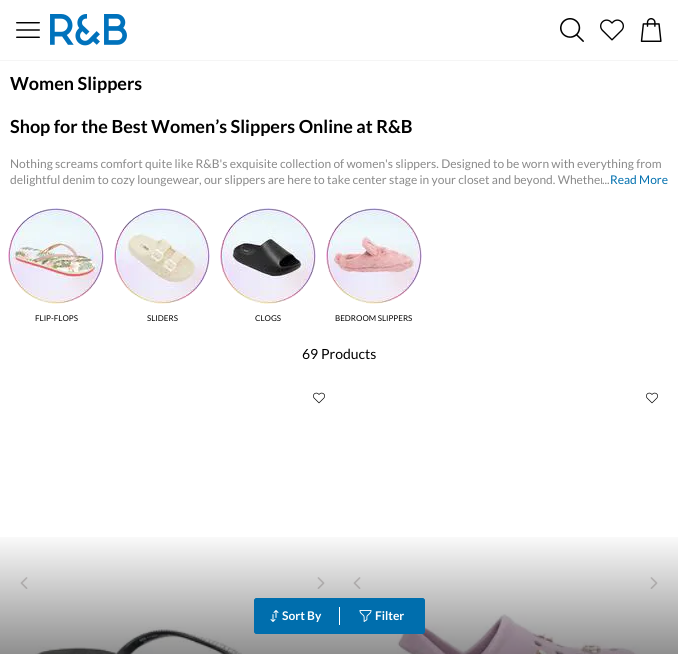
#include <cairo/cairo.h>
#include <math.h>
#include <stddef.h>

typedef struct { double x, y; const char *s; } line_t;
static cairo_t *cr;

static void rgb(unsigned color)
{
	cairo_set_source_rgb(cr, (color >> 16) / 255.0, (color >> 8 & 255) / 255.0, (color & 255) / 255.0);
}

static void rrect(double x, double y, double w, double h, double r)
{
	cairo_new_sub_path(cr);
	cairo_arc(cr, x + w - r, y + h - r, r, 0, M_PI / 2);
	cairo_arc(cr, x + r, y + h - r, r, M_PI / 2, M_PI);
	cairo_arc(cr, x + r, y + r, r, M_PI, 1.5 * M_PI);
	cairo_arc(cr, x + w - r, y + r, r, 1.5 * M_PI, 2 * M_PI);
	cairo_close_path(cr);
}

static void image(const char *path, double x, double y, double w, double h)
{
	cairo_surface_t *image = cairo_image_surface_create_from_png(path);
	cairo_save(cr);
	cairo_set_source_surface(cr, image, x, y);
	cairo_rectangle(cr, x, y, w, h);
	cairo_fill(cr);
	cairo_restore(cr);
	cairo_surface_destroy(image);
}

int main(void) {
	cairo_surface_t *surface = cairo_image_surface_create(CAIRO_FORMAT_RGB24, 678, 654);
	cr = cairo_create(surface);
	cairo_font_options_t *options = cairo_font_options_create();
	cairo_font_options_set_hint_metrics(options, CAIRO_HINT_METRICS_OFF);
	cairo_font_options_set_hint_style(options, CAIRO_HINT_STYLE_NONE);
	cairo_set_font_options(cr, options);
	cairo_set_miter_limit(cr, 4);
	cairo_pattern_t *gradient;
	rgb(0xffffff);
	cairo_paint(cr);
	rgb(0xf5f5f5);
	cairo_rectangle(cr, 0, 60, 678, 1);
	cairo_fill(cr);
	image("img/1.png", 16, 22, 24, 16);
	image("img/2.png", 50, 14, 77, 32);
	image("img/3.png", 560, 18, 24, 24);
	image("img/4.png", 600, 19, 24, 22);
	image("img/5.png", 640, 18, 22, 24);
	image("img/6.png", 8, 208, 96, 96);
	image("img/7.png", 114, 208, 96, 96);
	image("img/8.png", 220, 208, 96, 96);
	image("img/9.png", 326, 208, 96, 96);
	image("img/13.png", 20, 577, 8, 12);
	image("img/14.png", 317, 577, 8, 12);
	image("img/15.png", 35, 627, 207, 27);
	image("img/13.png", 353, 577, 8, 12);
	image("img/14.png", 650, 577, 8, 12);
	image("img/16.png", 397, 614, 243, 40);
	gradient = cairo_pattern_create_linear(339, 529, 339, 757);
	cairo_pattern_add_color_stop_rgba(gradient, 0.01, 0, 0, 0, 0);
	cairo_pattern_add_color_stop_rgba(gradient, 0.88, 0, 0, 0, 0.71);
	cairo_pattern_add_color_stop_rgba(gradient, 1, 0, 0, 0, 0);
	cairo_set_source(cr, gradient);
	cairo_pattern_destroy(gradient);
	cairo_rectangle(cr, 0, 537, 678, 117);
	cairo_fill(cr);
	rgb(0x006ead);
	rrect(254, 598, 171, 36, 3);
	cairo_fill(cr);
	rrect(254.5, 598.5, 84, 35, 2.5);
	cairo_fill_preserve(cr);
	cairo_set_line_width(cr, 1);
	cairo_stroke(cr);
	image("img/10.png", 270, 610, 9, 12);
	rgb(0xffffff);
	cairo_rectangle(cr, 339, 607, 1, 18);
	cairo_fill(cr);
	rgb(0x006ead);
	rrect(340.5, 598.5, 84, 35, 2.5);
	cairo_fill_preserve(cr);
	cairo_stroke(cr);
	image("img/11.png", 359, 610, 13, 12);
	image("img/12.png", 313, 392, 12, 12);
	image("img/12.png", 646, 392, 12, 12);
	cairo_select_font_face(cr, "Lato", CAIRO_FONT_SLANT_NORMAL, CAIRO_FONT_WEIGHT_BOLD);
	cairo_set_font_size(cr, 18);
	rgb(0x000000);
	cairo_move_to(cr, 10, 90);
	cairo_show_text(cr, "Women Slippers");
	cairo_move_to(cr, 10, 133);
	cairo_show_text(cr, "Shop for the Best Women’s Slippers Online at R&B");
	cairo_select_font_face(cr, "Lato", CAIRO_FONT_SLANT_NORMAL, CAIRO_FONT_WEIGHT_NORMAL);
	cairo_set_font_size(cr, 12);
	rgb(0x898989);
	cairo_move_to(cr, 10, 168);
	cairo_show_text(cr, "Nothing screams comfort quite like R&B's exquisite collection of women's slippers. Designed to be worn with everything from");
	cairo_move_to(cr, 10, 184);
	cairo_show_text(cr, "delightful denim to cozy loungewear, our slippers are here to take center stage in your closet and beyond. Whether");
	rgb(0xffffff);
	cairo_rectangle(cr, 602, 177, 3, 7);
	cairo_fill(cr);
	rgb(0x898989);
	cairo_move_to(cr, 602, 184);
	cairo_show_text(cr, "...");
	rgb(0x006fae);
	cairo_move_to(cr, 610, 184);
	cairo_show_text(cr, "Read More");
	cairo_set_font_size(cr, 8);
	rgb(0x000000);
	{
		static const line_t items[] = {
			{35, 321, "FLIP-FLOPS"},
			{147, 321, "SLIDERS"},
			{255, 321, "CLOGS"},
			{335, 321, "BEDROOM SLIPPERS"},
		};
		for (size_t i = 0; i < sizeof items / sizeof *items; i++) {
			cairo_move_to(cr, items[i].x, items[i].y);
			cairo_show_text(cr, items[i].s);
		}
	}
	cairo_set_font_size(cr, 14);
	cairo_move_to(cr, 302, 359);
	cairo_show_text(cr, "69 Products");
	cairo_select_font_face(cr, "Lato", CAIRO_FONT_SLANT_NORMAL, CAIRO_FONT_WEIGHT_BOLD);
	cairo_set_font_size(cr, 12);
	rgb(0xffffff);
	cairo_move_to(cr, 282, 620);
	cairo_show_text(cr, "Sort By");
	cairo_move_to(cr, 375, 620);
	cairo_show_text(cr, "Filter");
	cairo_surface_write_to_png(surface, "page.png");
	cairo_font_options_destroy(options);
	cairo_destroy(cr);
	cairo_surface_destroy(surface);
	return 0;
}
